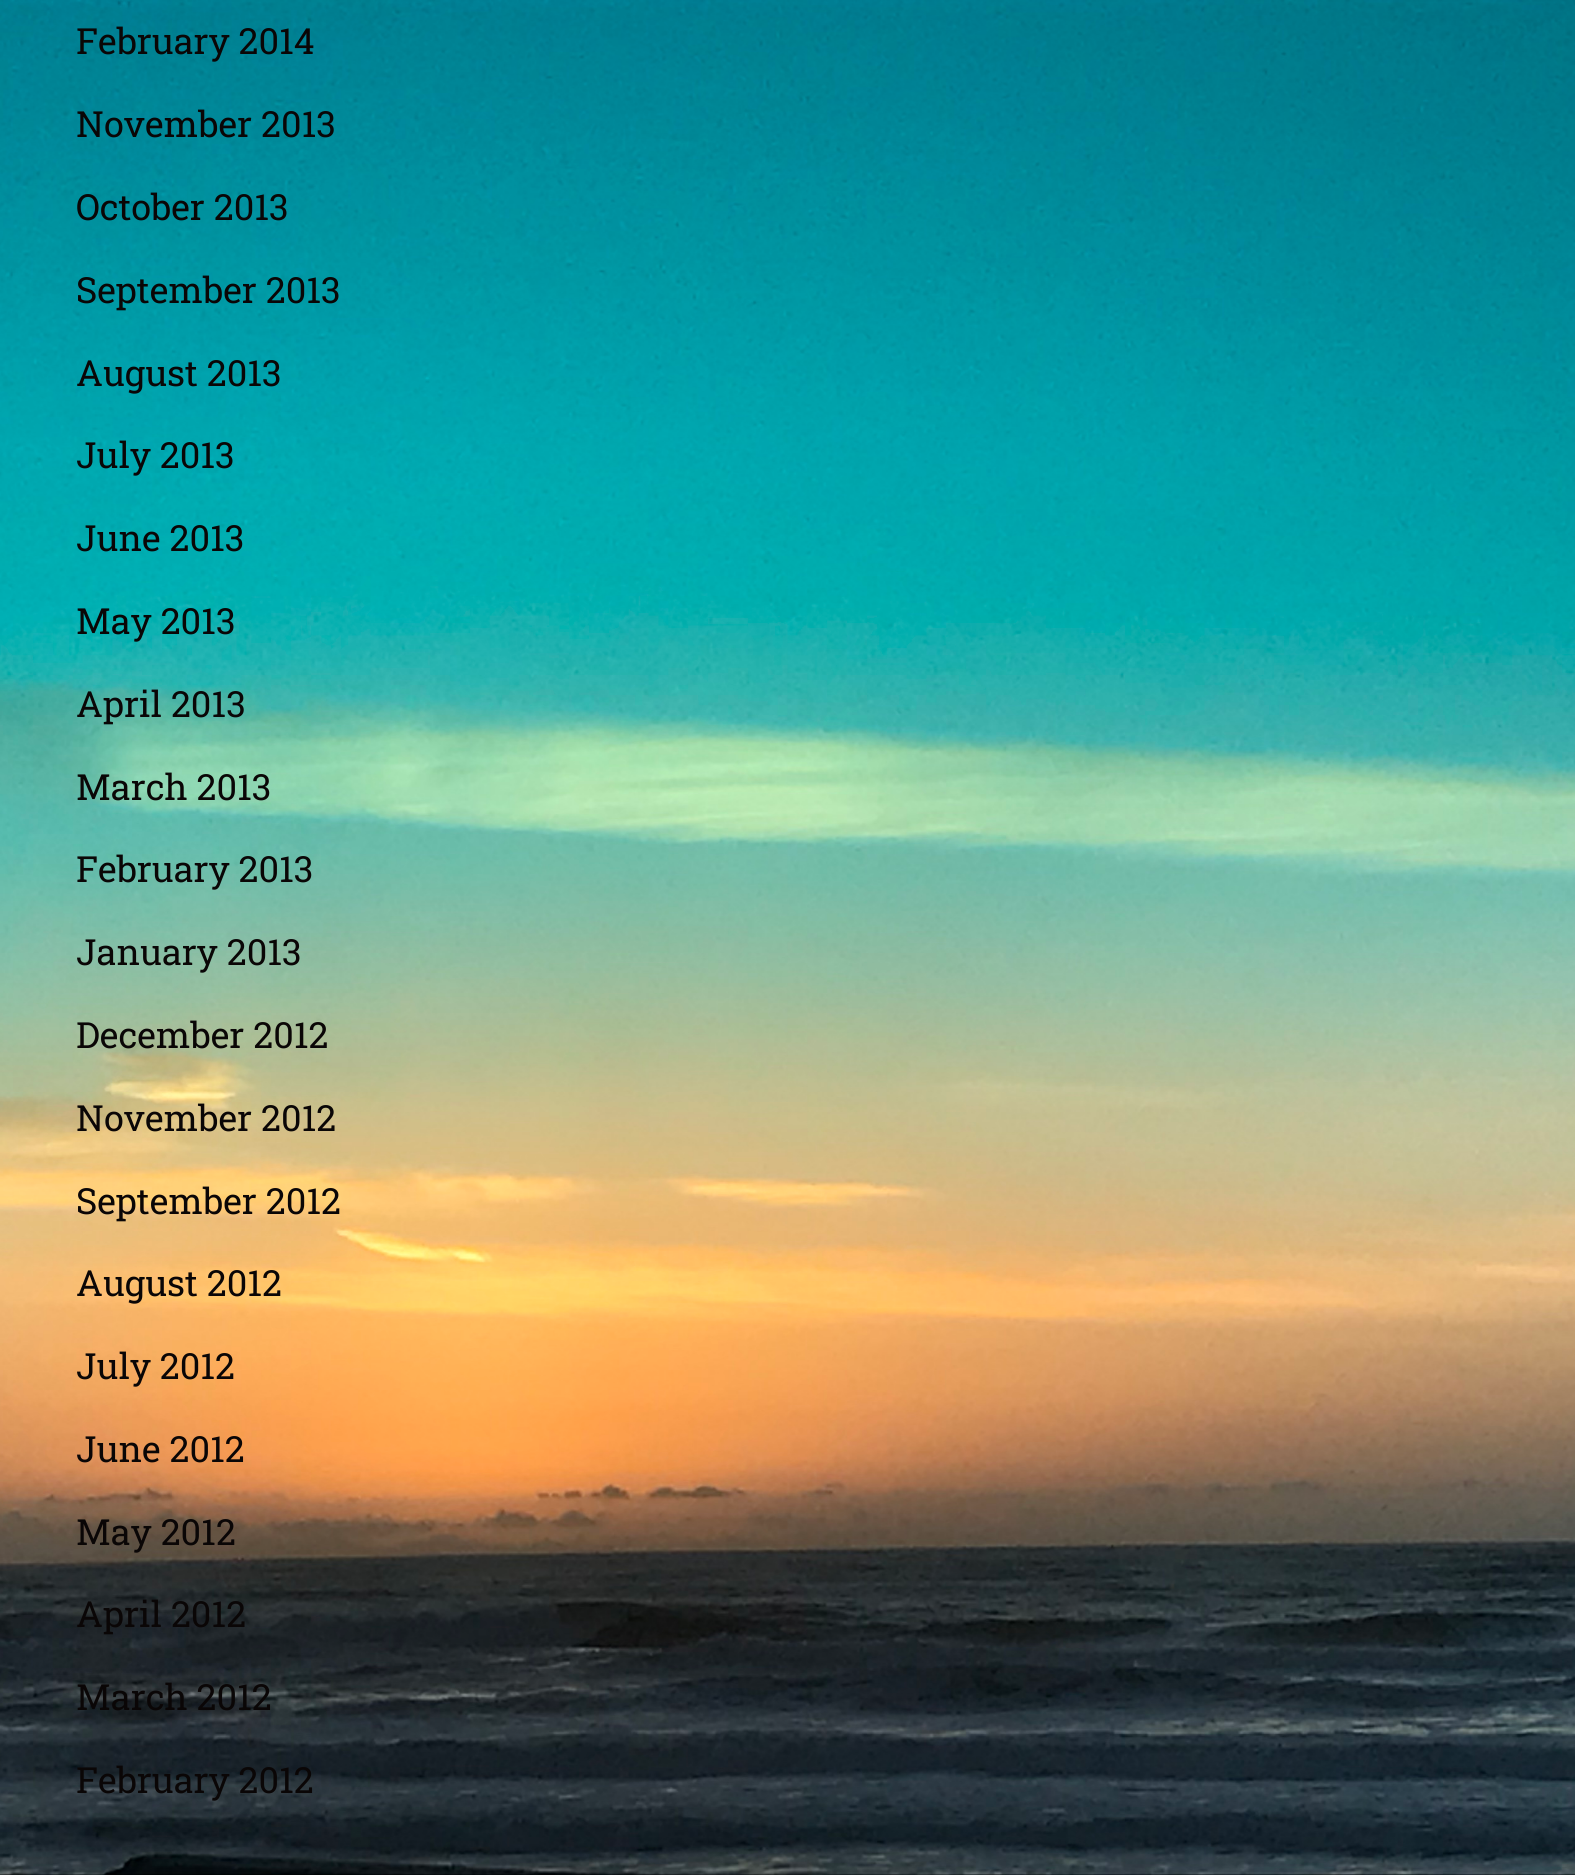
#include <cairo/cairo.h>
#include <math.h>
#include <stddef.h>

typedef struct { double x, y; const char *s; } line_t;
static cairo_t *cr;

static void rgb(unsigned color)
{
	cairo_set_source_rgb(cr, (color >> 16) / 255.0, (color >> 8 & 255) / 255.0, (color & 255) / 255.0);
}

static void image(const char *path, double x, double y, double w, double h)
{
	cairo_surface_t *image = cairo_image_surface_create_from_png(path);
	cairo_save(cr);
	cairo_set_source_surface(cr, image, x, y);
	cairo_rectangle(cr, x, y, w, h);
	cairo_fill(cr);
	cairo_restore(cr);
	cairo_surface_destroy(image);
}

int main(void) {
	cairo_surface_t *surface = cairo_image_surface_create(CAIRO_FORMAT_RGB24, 1575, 1875);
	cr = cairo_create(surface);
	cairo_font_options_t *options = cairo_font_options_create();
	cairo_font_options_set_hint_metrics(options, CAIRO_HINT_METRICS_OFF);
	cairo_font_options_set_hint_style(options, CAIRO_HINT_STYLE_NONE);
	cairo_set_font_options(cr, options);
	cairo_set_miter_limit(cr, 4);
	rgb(0xffffff);
	cairo_paint(cr);
	image("img/1.png", 0, 0, 1575, 1875);
	cairo_select_font_face(cr, "Roboto Slab", CAIRO_FONT_SLANT_NORMAL, CAIRO_FONT_WEIGHT_NORMAL);
	cairo_set_font_size(cr, 36);
	rgb(0x0a0606);
	{
		static const line_t items[] = {
			{76, 54, "February 2014"},
			{76, 137, "November 2013"},
			{76, 220, "October 2013"},
			{76, 303, "September 2013"},
			{76, 386, "August 2013"},
			{76, 468, "July 2013"},
			{76, 551, "June 2013"},
			{76, 634, "May 2013"},
			{76, 717, "April 2013"},
			{76, 800, "March 2013"},
			{76, 882, "February 2013"},
			{76, 965, "January 2013"},
			{76, 1048, "December 2012"},
			{76, 1131, "November 2012"},
			{76, 1214, "September 2012"},
			{76, 1296, "August 2012"},
			{76, 1379, "July 2012"},
			{76, 1462, "June 2012"},
			{76, 1545, "May 2012"},
			{76, 1627, "April 2012"},
			{76, 1710, "March 2012"},
			{76, 1793, "February 2012"},
		};
		for (size_t i = 0; i < sizeof items / sizeof *items; i++) {
			cairo_move_to(cr, items[i].x, items[i].y);
			cairo_show_text(cr, items[i].s);
		}
	}
	cairo_surface_write_to_png(surface, "page.png");
	cairo_font_options_destroy(options);
	cairo_destroy(cr);
	cairo_surface_destroy(surface);
	return 0;
}
